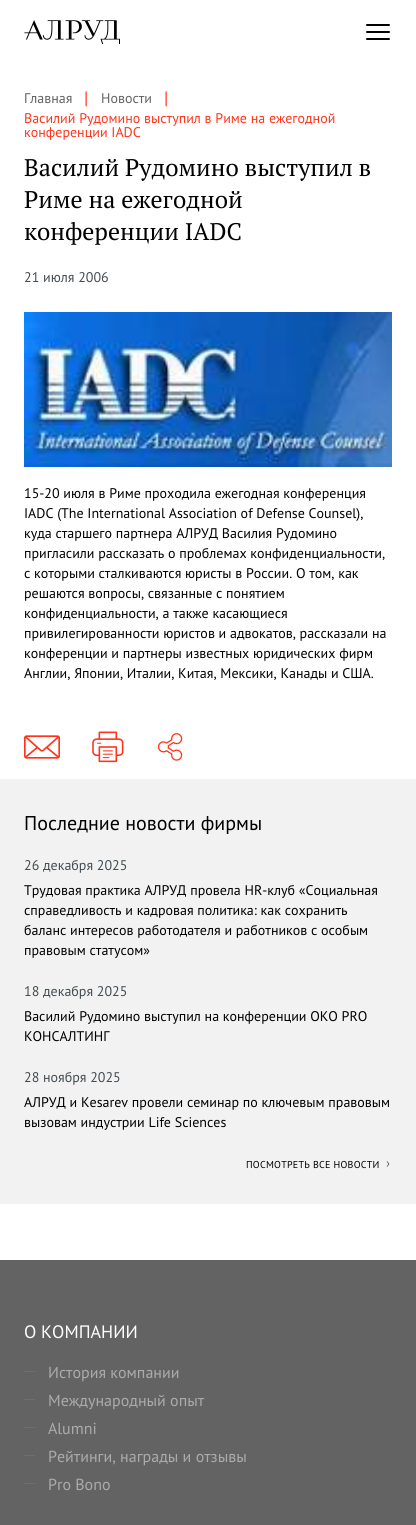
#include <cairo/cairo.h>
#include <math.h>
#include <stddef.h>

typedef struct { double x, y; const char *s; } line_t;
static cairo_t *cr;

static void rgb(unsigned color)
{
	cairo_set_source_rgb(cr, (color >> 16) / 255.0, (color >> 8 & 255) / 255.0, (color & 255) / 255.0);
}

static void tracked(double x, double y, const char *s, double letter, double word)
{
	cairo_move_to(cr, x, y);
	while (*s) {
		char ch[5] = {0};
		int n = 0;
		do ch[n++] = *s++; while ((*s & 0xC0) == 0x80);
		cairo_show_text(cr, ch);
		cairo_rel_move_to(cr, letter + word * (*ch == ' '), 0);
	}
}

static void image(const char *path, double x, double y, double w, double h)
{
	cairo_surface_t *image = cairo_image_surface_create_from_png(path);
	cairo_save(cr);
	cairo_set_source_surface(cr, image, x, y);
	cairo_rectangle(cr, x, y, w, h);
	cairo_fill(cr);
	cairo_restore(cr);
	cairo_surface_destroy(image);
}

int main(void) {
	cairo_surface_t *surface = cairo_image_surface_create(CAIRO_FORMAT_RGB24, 416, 1525);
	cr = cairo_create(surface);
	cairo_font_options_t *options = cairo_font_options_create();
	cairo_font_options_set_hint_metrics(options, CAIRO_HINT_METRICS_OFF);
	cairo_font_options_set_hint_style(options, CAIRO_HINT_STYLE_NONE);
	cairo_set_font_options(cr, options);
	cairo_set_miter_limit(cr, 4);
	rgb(0xffffff);
	cairo_paint(cr);
	image("img/1.png", 24, 20, 96, 24);
	cairo_new_path(cr);
	cairo_move_to(cr, 367, 25);
	cairo_line_to(cr, 389, 25);
	cairo_move_to(cr, 367, 32);
	cairo_line_to(cr, 389, 32);
	cairo_move_to(cr, 367, 39);
	cairo_line_to(cr, 389, 39);
	rgb(0x000000);
	cairo_set_line_cap(cr, CAIRO_LINE_CAP_ROUND);
	cairo_set_line_join(cr, CAIRO_LINE_JOIN_ROUND);
	cairo_stroke(cr);
	image("img/2.png", 24, 312, 368, 155);
	image("img/3.png", 24, 735, 36, 24);
	image("img/4.png", 92, 731, 32, 32);
	image("img/5.png", 157, 733, 26, 28);
	rgb(0x636363);
	cairo_rectangle(cr, 0, 1260, 416, 265);
	cairo_fill(cr);
	cairo_select_font_face(cr, "PT Sans", CAIRO_FONT_SLANT_NORMAL, CAIRO_FONT_WEIGHT_NORMAL);
	cairo_set_font_size(cr, 14);
	cairo_move_to(cr, 24, 103);
	cairo_show_text(cr, "Главная");
	cairo_set_font_size(cr, 18);
	rgb(0xff351b);
	cairo_move_to(cr, 84, 104);
	cairo_show_text(cr, "|");
	cairo_set_font_size(cr, 14);
	rgb(0x636363);
	cairo_move_to(cr, 101, 103);
	cairo_show_text(cr, "Новости");
	cairo_set_font_size(cr, 18);
	rgb(0xff351b);
	cairo_move_to(cr, 164, 104);
	cairo_show_text(cr, "|");
	cairo_set_font_size(cr, 14);
	cairo_move_to(cr, 24, 123);
	cairo_show_text(cr, "Василий Рудомино выступил в Риме на ежегодной");
	cairo_move_to(cr, 24, 137);
	cairo_show_text(cr, "конференции IADC");
	cairo_select_font_face(cr, "PT Serif", CAIRO_FONT_SLANT_NORMAL, CAIRO_FONT_WEIGHT_NORMAL);
	cairo_set_font_size(cr, 24);
	rgb(0x000000);
	{
		static const line_t items[] = {
			{24, 176, "Василий Рудомино выступил в"},
			{24, 208, "Риме на ежегодной"},
			{24, 240, "конференции IADC"},
		};
		for (size_t i = 0; i < sizeof items / sizeof *items; i++) {
			cairo_move_to(cr, items[i].x, items[i].y);
			cairo_show_text(cr, items[i].s);
		}
	}
	cairo_select_font_face(cr, "PT Sans", CAIRO_FONT_SLANT_NORMAL, CAIRO_FONT_WEIGHT_NORMAL);
	cairo_set_font_size(cr, 14);
	rgb(0x434d52);
	cairo_move_to(cr, 24, 282);
	cairo_show_text(cr, "21 июля 2006");
	rgb(0x000000);
	{
		static const line_t items[] = {
			{24, 498, "15-20 июля в Риме проходила ежегодная конференция"},
			{24, 518, "IADC (The International Association of Defense Counsel),"},
			{24, 538, "куда старшего партнера АЛРУД Василия Рудомино"},
			{24, 558, "пригласили рассказать о проблемах конфиденциальности,"},
			{24, 578, "с которыми сталкиваются юристы в России. О том, как"},
			{24, 598, "решаются вопросы, связанные с понятием"},
			{24, 618, "конфиденциальности, а также касающиеся"},
			{24, 638, "привилегированности юристов и адвокатов, рассказали на"},
			{24, 658, "конференции и партнеры известных юридических фирм"},
			{24, 678, "Англии, Японии, Италии, Китая, Мексики, Канады и США."},
		};
		for (size_t i = 0; i < sizeof items / sizeof *items; i++) {
			cairo_move_to(cr, items[i].x, items[i].y);
			cairo_show_text(cr, items[i].s);
		}
	}
	cairo_save(cr);
	cairo_rectangle(cr, 0, 779, 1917, 425);
	cairo_clip(cr);
	cairo_rectangle(cr, -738.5, 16.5, 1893, 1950);
	rgb(0xf2f2f2);
	cairo_set_line_width(cr, 1525);
	cairo_set_line_cap(cr, CAIRO_LINE_CAP_BUTT);
	cairo_set_line_join(cr, CAIRO_LINE_JOIN_MITER);
	cairo_stroke(cr);
	cairo_restore(cr);
	rgb(0xf2f2f2);
	cairo_rectangle(cr, 24, 779, 368, 425);
	cairo_fill(cr);
	cairo_set_font_size(cr, 20);
	rgb(0x000000);
	cairo_move_to(cr, 24, 830);
	cairo_show_text(cr, "Последние новости фирмы");
	cairo_set_font_size(cr, 14);
	rgb(0x434d52);
	cairo_move_to(cr, 24, 870);
	cairo_show_text(cr, "26 декабря 2025");
	rgb(0x000000);
	{
		static const line_t items[] = {
			{24, 895, "Трудовая практика АЛРУД провела HR-клуб «Социальная"},
			{24, 915, "справедливость и кадровая политика: как сохранить"},
			{24, 935, "баланс интересов работодателя и работников с особым"},
			{24, 955, "правовым статусом»"},
		};
		for (size_t i = 0; i < sizeof items / sizeof *items; i++) {
			cairo_move_to(cr, items[i].x, items[i].y);
			cairo_show_text(cr, items[i].s);
		}
	}
	rgb(0x434d52);
	cairo_move_to(cr, 24, 996);
	cairo_show_text(cr, "18 декабря 2025");
	rgb(0x000000);
	cairo_move_to(cr, 24, 1021);
	cairo_show_text(cr, "Василий Рудомино выступил на конференции ОКО PRO");
	cairo_move_to(cr, 24, 1041);
	cairo_show_text(cr, "КОНСАЛТИНГ");
	rgb(0x434d52);
	cairo_move_to(cr, 24, 1082);
	cairo_show_text(cr, "28 ноября 2025");
	rgb(0x000000);
	cairo_move_to(cr, 24, 1107);
	cairo_show_text(cr, "АЛРУД и Kesarev провели семинар по ключевым правовым");
	cairo_move_to(cr, 24, 1127);
	cairo_show_text(cr, "вызовам индустрии Life Sciences");
	cairo_set_font_size(cr, 10);
	tracked(246, 1168, "ПОСМОТРЕТЬ ВСЕ НОВОСТИ", 0.25, 0);
	cairo_new_path(cr);
	cairo_move_to(cr, 387, 1161.5);
	cairo_line_to(cr, 389, 1164);
	cairo_line_to(cr, 387, 1166.5);
	cairo_set_line_width(cr, 0.5);
	cairo_stroke(cr);
	cairo_set_font_size(cr, 18);
	rgb(0xffffff);
	cairo_move_to(cr, 24, 1338);
	cairo_show_text(cr, "О КОМПАНИИ");
	rgb(0xff351b);
	cairo_rectangle(cr, 24, 1371, 11, 1);
	cairo_fill(cr);
	cairo_set_font_size(cr, 16);
	rgb(0xababab);
	cairo_move_to(cr, 48, 1378);
	cairo_show_text(cr, "История компании");
	rgb(0xff351b);
	cairo_rectangle(cr, 24, 1399, 11, 1);
	cairo_fill(cr);
	rgb(0xababab);
	cairo_move_to(cr, 48, 1406);
	cairo_show_text(cr, "Международный опыт");
	rgb(0xff351b);
	cairo_rectangle(cr, 24, 1427, 11, 1);
	cairo_fill(cr);
	rgb(0xababab);
	cairo_move_to(cr, 48, 1434);
	cairo_show_text(cr, "Alumni");
	rgb(0xff351b);
	cairo_rectangle(cr, 24, 1455, 11, 1);
	cairo_fill(cr);
	rgb(0xababab);
	cairo_move_to(cr, 48, 1462);
	cairo_show_text(cr, "Рейтинги, награды и отзывы");
	rgb(0xff351b);
	cairo_rectangle(cr, 24, 1483, 11, 1);
	cairo_fill(cr);
	rgb(0xababab);
	cairo_move_to(cr, 48, 1490);
	cairo_show_text(cr, "Pro Bono");
	cairo_surface_write_to_png(surface, "page.png");
	cairo_font_options_destroy(options);
	cairo_destroy(cr);
	cairo_surface_destroy(surface);
	return 0;
}
